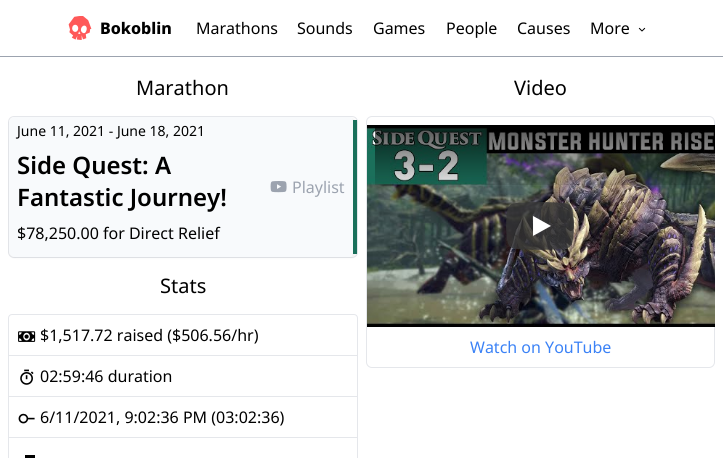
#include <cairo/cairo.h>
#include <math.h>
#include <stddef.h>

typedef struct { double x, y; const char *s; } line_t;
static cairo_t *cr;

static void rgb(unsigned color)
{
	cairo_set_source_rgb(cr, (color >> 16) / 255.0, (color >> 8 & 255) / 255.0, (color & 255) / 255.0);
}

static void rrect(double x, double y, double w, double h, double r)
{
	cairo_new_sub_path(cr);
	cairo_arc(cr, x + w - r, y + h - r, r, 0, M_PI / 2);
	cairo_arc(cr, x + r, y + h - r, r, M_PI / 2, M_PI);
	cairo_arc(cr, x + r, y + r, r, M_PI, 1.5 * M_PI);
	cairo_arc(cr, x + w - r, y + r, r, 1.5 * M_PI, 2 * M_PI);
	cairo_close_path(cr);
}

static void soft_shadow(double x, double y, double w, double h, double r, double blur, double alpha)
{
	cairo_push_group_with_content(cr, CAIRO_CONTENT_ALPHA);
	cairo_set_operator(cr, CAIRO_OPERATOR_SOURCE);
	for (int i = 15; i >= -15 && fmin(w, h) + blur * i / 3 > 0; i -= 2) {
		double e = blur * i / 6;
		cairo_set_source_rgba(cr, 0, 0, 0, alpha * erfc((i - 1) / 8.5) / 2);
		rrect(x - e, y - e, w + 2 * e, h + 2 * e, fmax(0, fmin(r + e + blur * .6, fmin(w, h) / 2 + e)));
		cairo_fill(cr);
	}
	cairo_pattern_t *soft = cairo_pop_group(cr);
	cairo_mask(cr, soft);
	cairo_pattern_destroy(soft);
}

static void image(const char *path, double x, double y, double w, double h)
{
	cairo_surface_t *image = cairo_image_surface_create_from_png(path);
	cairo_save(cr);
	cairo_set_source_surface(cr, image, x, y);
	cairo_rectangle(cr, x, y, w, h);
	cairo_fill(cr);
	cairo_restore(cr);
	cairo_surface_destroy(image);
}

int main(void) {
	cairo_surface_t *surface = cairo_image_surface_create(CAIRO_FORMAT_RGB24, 723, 458);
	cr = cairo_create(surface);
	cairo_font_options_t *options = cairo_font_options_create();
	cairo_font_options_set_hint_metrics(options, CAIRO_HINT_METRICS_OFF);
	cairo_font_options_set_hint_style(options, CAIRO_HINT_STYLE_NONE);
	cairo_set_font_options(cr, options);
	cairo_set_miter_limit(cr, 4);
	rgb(0xffffff);
	cairo_paint(cr);
	rgb(0x9ca3af);
	cairo_rectangle(cr, 0, 56, 723, 1);
	cairo_fill(cr);
	image("img/1.png", 68, 16, 24, 24);
	image("img/2.png", 638, 27, 8, 5);
	rrect(8.5, 116.5, 349, 141, 5.5);
	rgb(0xe5e7eb);
	cairo_set_line_width(cr, 1);
	cairo_stroke(cr);
	rgb(0x000000);
	soft_shadow(9, 118, 348, 140, 6, 1, 0.05);
	rgb(0xf8fafc);
	cairo_new_path(cr);
	cairo_move_to(cr, 15, 117);
	cairo_line_to(cr, 351, 117);
	cairo_curve_to(cr, 352, 117, 353, 120, 353, 123);
	cairo_line_to(cr, 353, 251);
	cairo_curve_to(cr, 353, 254, 352, 257, 351, 257);
	cairo_line_to(cr, 15, 257);
	cairo_curve_to(cr, 12, 257, 9, 254, 9, 251);
	cairo_line_to(cr, 9, 123);
	cairo_curve_to(cr, 9, 120, 12, 117, 15, 117);
	cairo_close_path(cr);
	cairo_fill(cr);
	rgb(0x1a705b);
	cairo_rectangle(cr, 353, 120, 4, 134);
	cairo_fill(cr);
	image("img/3.png", 270, 181, 17, 12);
	rrect(8.5, 314.5, 349, 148, 3.5);
	rgb(0xe5e7eb);
	cairo_stroke(cr);
	image("img/4.png", 18, 331, 18, 11);
	cairo_rectangle(cr, 9, 355, 348, 1);
	cairo_fill(cr);
	image("img/5.png", 20, 369, 14, 16);
	cairo_rectangle(cr, 9, 396, 348, 1);
	cairo_fill(cr);
	image("img/6.png", 18, 413, 17, 11);
	cairo_rectangle(cr, 9, 437, 348, 1);
	cairo_fill(cr);
	rgb(0x000000);
	cairo_rectangle(cr, 25, 455, 10, 3);
	cairo_fill(cr);
	rrect(366.5, 116.5, 348, 251, 5.5);
	rgb(0xe5e7eb);
	cairo_stroke(cr);
	image("img/7.png", 367, 125, 348, 202);
	image("img/8.png", 375, 125, 340, 60);
	image("img/9.png", 506, 202, 68, 48);
	cairo_select_font_face(cr, "Noto Sans ExtraBold", CAIRO_FONT_SLANT_NORMAL, CAIRO_FONT_WEIGHT_NORMAL);
	cairo_set_font_size(cr, 16);
	rgb(0x000000);
	cairo_move_to(cr, 100, 34);
	cairo_show_text(cr, "Bokoblin");
	cairo_select_font_face(cr, "Noto Sans", CAIRO_FONT_SLANT_NORMAL, CAIRO_FONT_WEIGHT_NORMAL);
	{
		static const line_t items[] = {
			{196, 34, "Marathons"},
			{297, 34, "Sounds"},
			{373, 34, "Games"},
			{446, 34, "People"},
			{517, 34, "Causes"},
			{590, 34, "More"},
		};
		for (size_t i = 0; i < sizeof items / sizeof *items; i++) {
			cairo_move_to(cr, items[i].x, items[i].y);
			cairo_show_text(cr, items[i].s);
		}
	}
	cairo_set_font_size(cr, 20);
	cairo_move_to(cr, 136, 95);
	cairo_show_text(cr, "Marathon");
	cairo_set_font_size(cr, 14);
	cairo_move_to(cr, 17, 136);
	cairo_show_text(cr, "June 11, 2021 - June 18, 2021");
	cairo_select_font_face(cr, "Noto Sans SemiBold", CAIRO_FONT_SLANT_NORMAL, CAIRO_FONT_WEIGHT_NORMAL);
	cairo_set_font_size(cr, 24);
	cairo_move_to(cr, 17, 174);
	cairo_show_text(cr, "Side Quest: A");
	cairo_move_to(cr, 17, 206);
	cairo_show_text(cr, "Fantastic Journey!");
	cairo_select_font_face(cr, "Noto Sans", CAIRO_FONT_SLANT_NORMAL, CAIRO_FONT_WEIGHT_NORMAL);
	cairo_set_font_size(cr, 16);
	cairo_move_to(cr, 17, 239);
	cairo_show_text(cr, "$78,250.00 for Direct Relief");
	rgb(0x9ca3af);
	cairo_move_to(cr, 292, 193);
	cairo_show_text(cr, "Playlist");
	cairo_set_font_size(cr, 20);
	rgb(0x000000);
	cairo_move_to(cr, 160, 293);
	cairo_show_text(cr, "Stats");
	cairo_set_font_size(cr, 16);
	{
		static const line_t items[] = {
			{40, 341, "$1,517.72 raised ($506.56/hr)"},
			{40, 382, "02:59:46 duration"},
			{40, 423, "6/11/2021, 9:02:36 PM (03:02:36)"},
		};
		for (size_t i = 0; i < sizeof items / sizeof *items; i++) {
			cairo_move_to(cr, items[i].x, items[i].y);
			cairo_show_text(cr, items[i].s);
		}
	}
	cairo_set_font_size(cr, 20);
	cairo_move_to(cr, 514, 95);
	cairo_show_text(cr, "Video");
	cairo_set_font_size(cr, 16);
	rgb(0x3b82f6);
	cairo_move_to(cr, 470, 353);
	cairo_show_text(cr, "Watch on YouTube");
	cairo_surface_write_to_png(surface, "page.png");
	cairo_font_options_destroy(options);
	cairo_destroy(cr);
	cairo_surface_destroy(surface);
	return 0;
}
